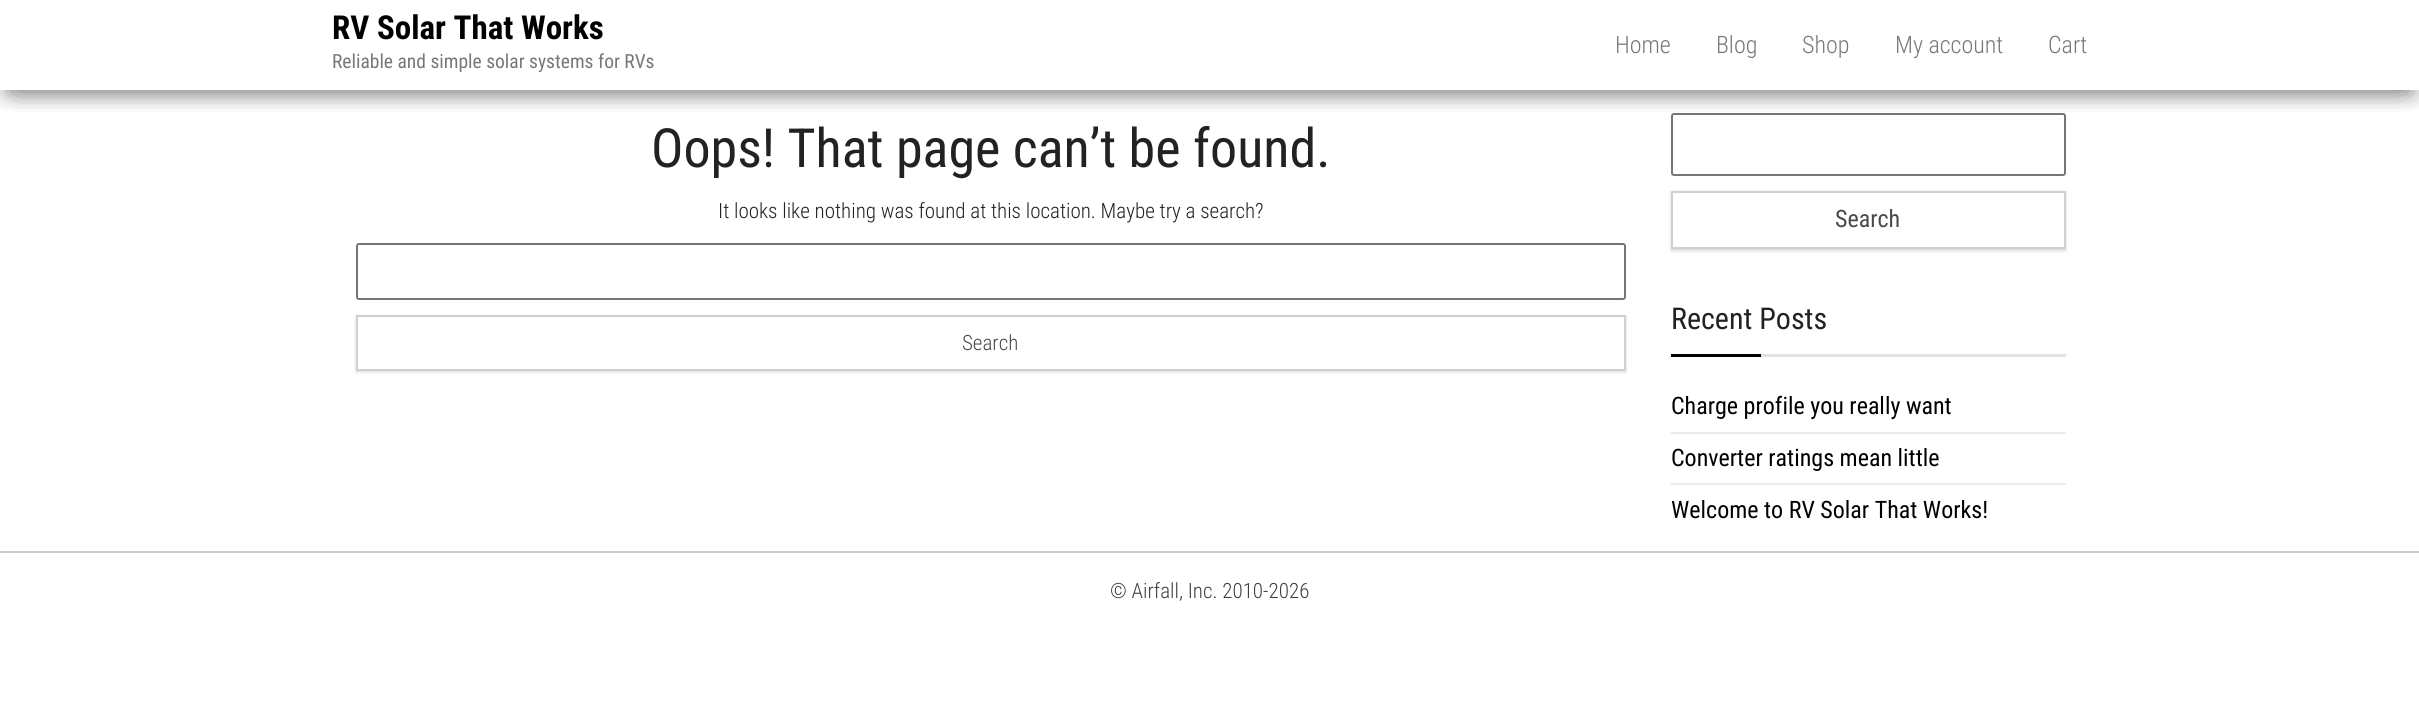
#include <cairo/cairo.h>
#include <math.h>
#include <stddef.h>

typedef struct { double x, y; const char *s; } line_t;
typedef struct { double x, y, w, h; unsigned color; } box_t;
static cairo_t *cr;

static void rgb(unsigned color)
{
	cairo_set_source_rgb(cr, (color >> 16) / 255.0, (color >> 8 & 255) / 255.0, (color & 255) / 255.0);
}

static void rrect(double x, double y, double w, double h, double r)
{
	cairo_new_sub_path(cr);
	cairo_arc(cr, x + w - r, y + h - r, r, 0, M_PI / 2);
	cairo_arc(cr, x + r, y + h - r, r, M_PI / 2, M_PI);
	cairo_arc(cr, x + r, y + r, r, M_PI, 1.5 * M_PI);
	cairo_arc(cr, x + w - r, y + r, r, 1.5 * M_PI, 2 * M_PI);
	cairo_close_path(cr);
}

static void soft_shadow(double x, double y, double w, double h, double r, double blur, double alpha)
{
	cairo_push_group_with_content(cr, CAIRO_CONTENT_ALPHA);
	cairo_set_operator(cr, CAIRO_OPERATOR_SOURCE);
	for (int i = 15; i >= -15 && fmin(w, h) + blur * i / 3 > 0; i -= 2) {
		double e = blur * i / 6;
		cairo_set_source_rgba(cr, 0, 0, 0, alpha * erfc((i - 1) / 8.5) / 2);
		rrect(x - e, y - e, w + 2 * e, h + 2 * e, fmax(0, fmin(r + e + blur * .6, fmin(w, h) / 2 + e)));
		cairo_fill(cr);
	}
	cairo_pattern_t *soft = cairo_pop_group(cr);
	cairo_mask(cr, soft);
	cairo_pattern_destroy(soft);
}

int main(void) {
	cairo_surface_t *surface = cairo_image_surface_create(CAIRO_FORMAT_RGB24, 2419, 725);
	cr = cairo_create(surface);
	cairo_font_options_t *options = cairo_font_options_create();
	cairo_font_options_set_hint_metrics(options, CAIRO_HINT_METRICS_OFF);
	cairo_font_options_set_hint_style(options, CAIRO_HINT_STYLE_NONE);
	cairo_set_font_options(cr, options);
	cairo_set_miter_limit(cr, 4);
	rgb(0xffffff);
	cairo_paint(cr);
	rrect(1672, 114, 393, 61, 2);
	rgb(0x767676);
	cairo_stroke(cr);
	cairo_save(cr);
	cairo_rectangle(cr, 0, 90, 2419, 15);
	cairo_clip(cr);
	rgb(0x000000);
	soft_shadow(8, 20, 2404, 75, 0, 7.5, 0.2);
	cairo_restore(cr);
	cairo_save(cr);
	cairo_rectangle(cr, 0, 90, 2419, 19);
	cairo_clip(cr);
	rgb(0x000000);
	soft_shadow(0, 5, 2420, 90, 0, 15, 0.12);
	cairo_restore(cr);
	cairo_save(cr);
	cairo_rectangle(cr, 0, 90, 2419, 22);
	cairo_clip(cr);
	rgb(0x000000);
	soft_shadow(18, 33, 2384, 54, 0, 15, 0.42);
	cairo_restore(cr);
	rrect(357, 244, 1268, 55, 2);
	cairo_stroke(cr);
	rgb(0x000000);
	soft_shadow(356, 317, 1270, 55, 0, 1.5, 0.15);
	rgb(0xffffff);
	cairo_rectangle(cr, 357, 316, 1268, 54);
	cairo_fill_preserve(cr);
	rgb(0xd0d0d0);
	cairo_stroke(cr);
	rgb(0x000000);
	soft_shadow(1671, 192, 395, 59, 0, 1.5, 0.15);
	rgb(0xffffff);
	cairo_rectangle(cr, 1672, 192, 393, 56);
	cairo_fill_preserve(cr);
	rgb(0xd0d0d0);
	cairo_stroke(cr);
	{
		static const box_t items[] = {
			{1761, 354, 305, 3, 0xe3e3e3},
			{1671, 354, 90, 3, 0x000000},
			{1671, 432, 395, 2, 0xebebeb},
			{1671, 483, 395, 2, 0xebebeb},
			{0, 551, 2419, 2, 0xcccccc},
		};
		for (size_t i = 0; i < sizeof items / sizeof *items; i++) {
			rgb(items[i].color);
			cairo_rectangle(cr, items[i].x, items[i].y, items[i].w, items[i].h);
			cairo_fill(cr);
		}
	}
	cairo_select_font_face(cr, "Roboto Condensed", CAIRO_FONT_SLANT_NORMAL, CAIRO_FONT_WEIGHT_BOLD);
	cairo_set_font_size(cr, 33);
	rgb(0x000000);
	cairo_move_to(cr, 332, 39);
	cairo_show_text(cr, "RV Solar That Works");
	cairo_select_font_face(cr, "Roboto Condensed", CAIRO_FONT_SLANT_NORMAL, CAIRO_FONT_WEIGHT_NORMAL);
	cairo_set_font_size(cr, 19.5);
	rgb(0x777777);
	cairo_move_to(cr, 332, 68);
	cairo_show_text(cr, "Reliable and simple solar systems for RVs");
	cairo_select_font_face(cr, "Roboto Condensed Light", CAIRO_FONT_SLANT_NORMAL, CAIRO_FONT_WEIGHT_NORMAL);
	cairo_set_font_size(cr, 24);
	{
		static const line_t items[] = {
			{1615, 53, "Home"},
			{1716, 53, "Blog"},
			{1802, 53, "Shop"},
			{1895, 53, "My account"},
			{2048, 53, "Cart"},
		};
		for (size_t i = 0; i < sizeof items / sizeof *items; i++) {
			cairo_move_to(cr, items[i].x, items[i].y);
			cairo_show_text(cr, items[i].s);
		}
	}
	cairo_select_font_face(cr, "Roboto Condensed", CAIRO_FONT_SLANT_NORMAL, CAIRO_FONT_WEIGHT_NORMAL);
	cairo_set_font_size(cr, 54);
	rgb(0x222222);
	cairo_move_to(cr, 651, 167);
	cairo_show_text(cr, "Oops! That page can’t be found.");
	cairo_select_font_face(cr, "Roboto Condensed Light", CAIRO_FONT_SLANT_NORMAL, CAIRO_FONT_WEIGHT_NORMAL);
	cairo_set_font_size(cr, 21);
	cairo_move_to(cr, 718, 218);
	cairo_show_text(cr, "It looks like nothing was found at this location. Maybe try a search?");
	rgb(0x464a4c);
	cairo_move_to(cr, 962, 350);
	cairo_show_text(cr, "Search");
	cairo_select_font_face(cr, "Roboto Condensed", CAIRO_FONT_SLANT_NORMAL, CAIRO_FONT_WEIGHT_NORMAL);
	cairo_set_font_size(cr, 24);
	cairo_move_to(cr, 1835, 227);
	cairo_show_text(cr, "Search");
	cairo_set_font_size(cr, 30);
	rgb(0x222222);
	cairo_move_to(cr, 1671, 329);
	cairo_show_text(cr, "Recent Posts");
	cairo_set_font_size(cr, 24);
	rgb(0x000000);
	{
		static const line_t items[] = {
			{1671, 414, "Charge profile you really want"},
			{1671, 466, "Converter ratings mean little"},
			{1671, 518, "Welcome to RV Solar That Works!"},
		};
		for (size_t i = 0; i < sizeof items / sizeof *items; i++) {
			cairo_move_to(cr, items[i].x, items[i].y);
			cairo_show_text(cr, items[i].s);
		}
	}
	cairo_select_font_face(cr, "Roboto Condensed Light", CAIRO_FONT_SLANT_NORMAL, CAIRO_FONT_WEIGHT_NORMAL);
	cairo_set_font_size(cr, 21);
	rgb(0x404040);
	cairo_move_to(cr, 1110, 598);
	cairo_show_text(cr, "© Airfall, Inc. 2010-2026");
	cairo_surface_write_to_png(surface, "page.png");
	cairo_font_options_destroy(options);
	cairo_destroy(cr);
	cairo_surface_destroy(surface);
	return 0;
}
